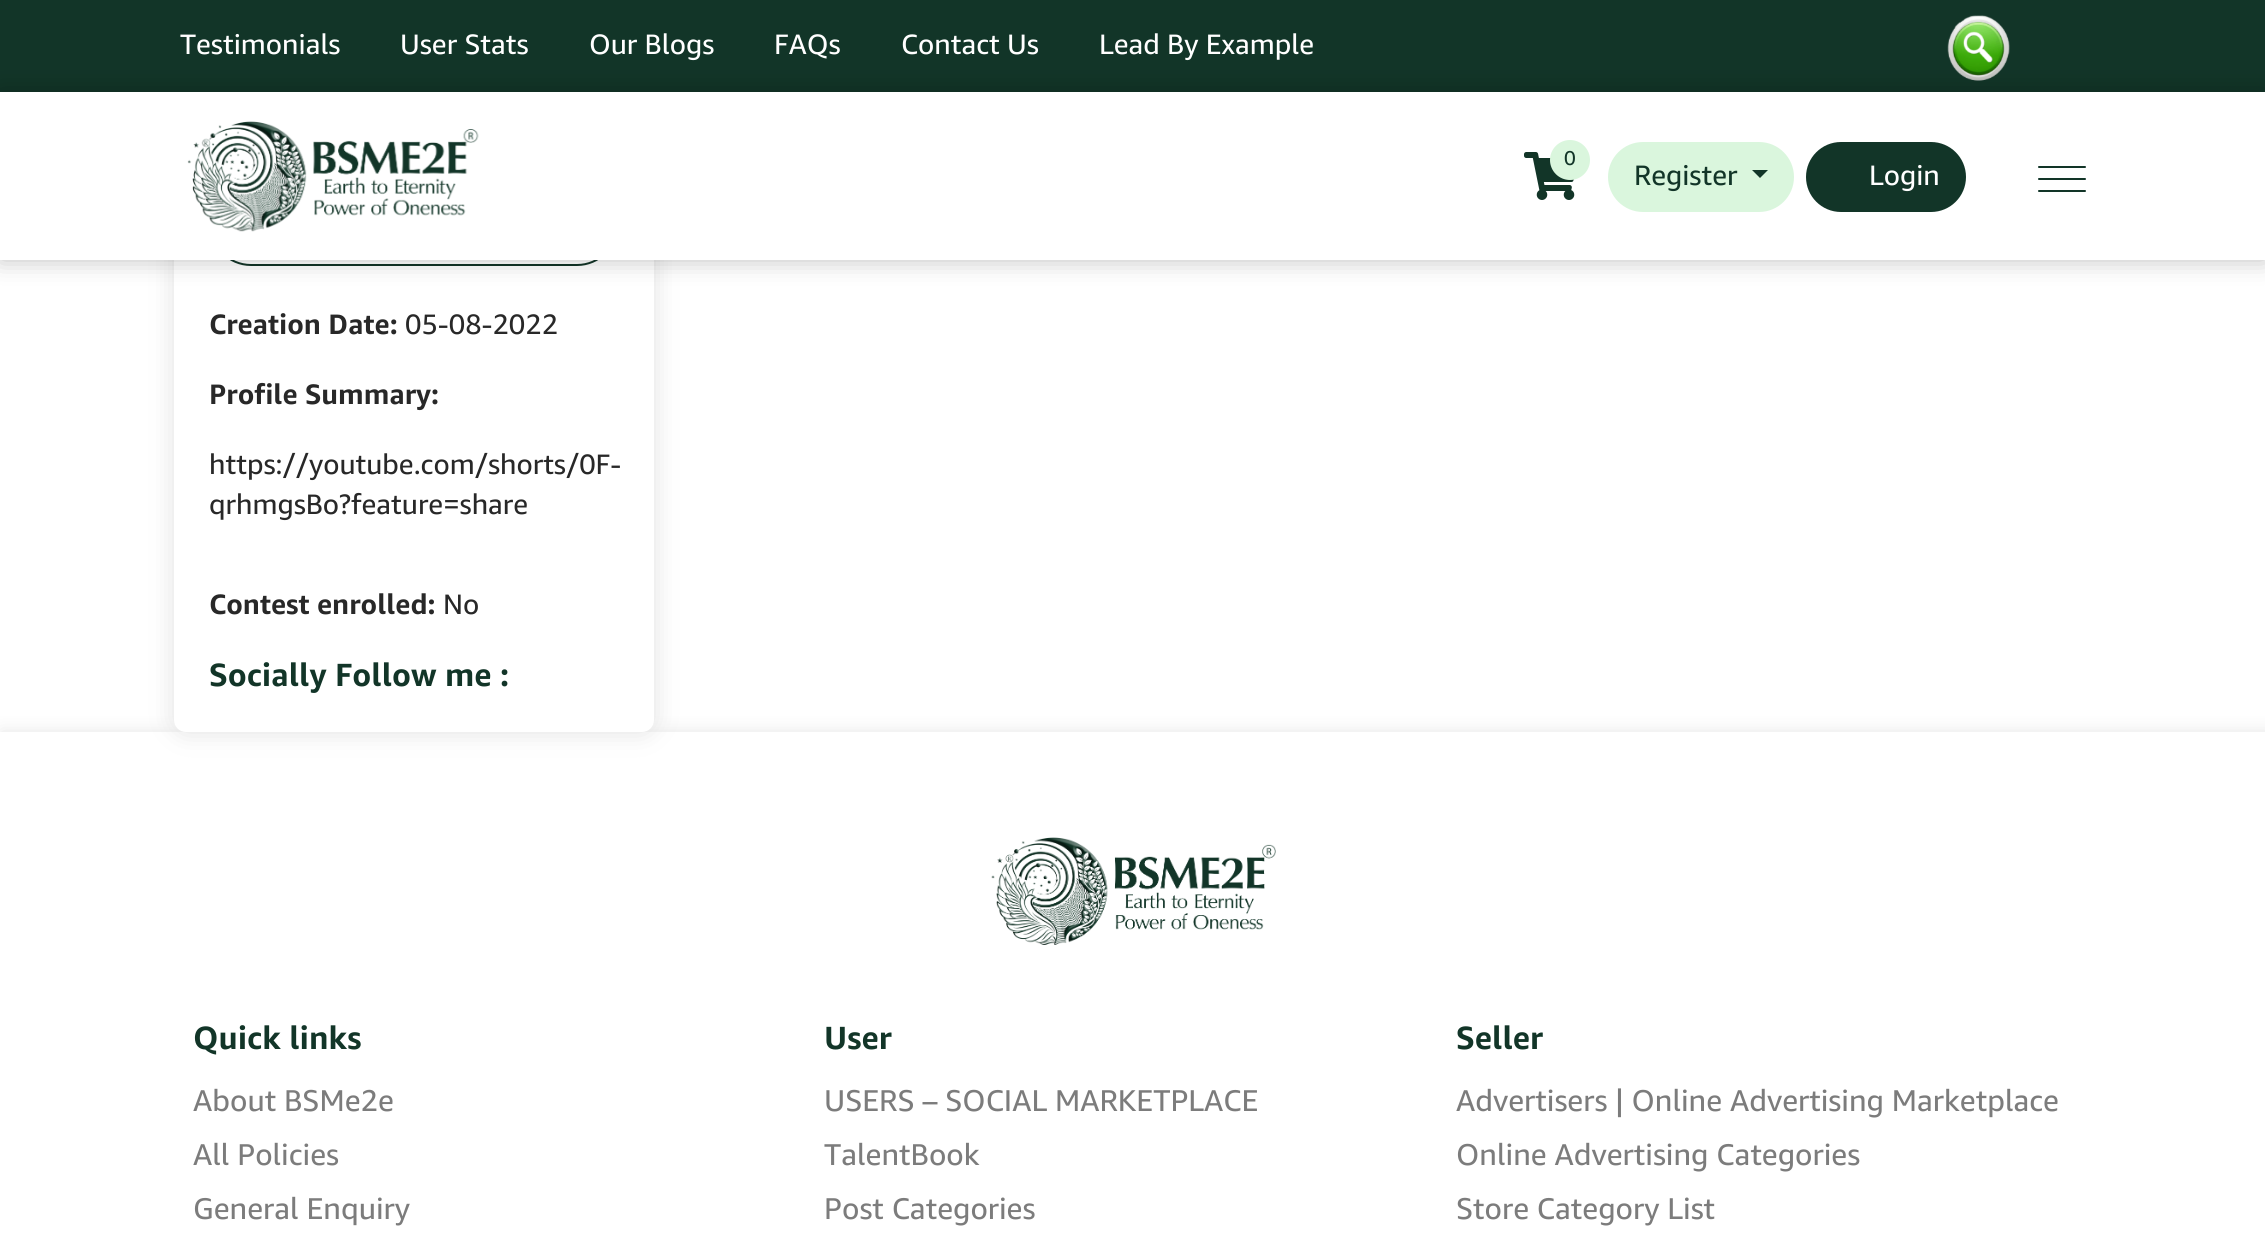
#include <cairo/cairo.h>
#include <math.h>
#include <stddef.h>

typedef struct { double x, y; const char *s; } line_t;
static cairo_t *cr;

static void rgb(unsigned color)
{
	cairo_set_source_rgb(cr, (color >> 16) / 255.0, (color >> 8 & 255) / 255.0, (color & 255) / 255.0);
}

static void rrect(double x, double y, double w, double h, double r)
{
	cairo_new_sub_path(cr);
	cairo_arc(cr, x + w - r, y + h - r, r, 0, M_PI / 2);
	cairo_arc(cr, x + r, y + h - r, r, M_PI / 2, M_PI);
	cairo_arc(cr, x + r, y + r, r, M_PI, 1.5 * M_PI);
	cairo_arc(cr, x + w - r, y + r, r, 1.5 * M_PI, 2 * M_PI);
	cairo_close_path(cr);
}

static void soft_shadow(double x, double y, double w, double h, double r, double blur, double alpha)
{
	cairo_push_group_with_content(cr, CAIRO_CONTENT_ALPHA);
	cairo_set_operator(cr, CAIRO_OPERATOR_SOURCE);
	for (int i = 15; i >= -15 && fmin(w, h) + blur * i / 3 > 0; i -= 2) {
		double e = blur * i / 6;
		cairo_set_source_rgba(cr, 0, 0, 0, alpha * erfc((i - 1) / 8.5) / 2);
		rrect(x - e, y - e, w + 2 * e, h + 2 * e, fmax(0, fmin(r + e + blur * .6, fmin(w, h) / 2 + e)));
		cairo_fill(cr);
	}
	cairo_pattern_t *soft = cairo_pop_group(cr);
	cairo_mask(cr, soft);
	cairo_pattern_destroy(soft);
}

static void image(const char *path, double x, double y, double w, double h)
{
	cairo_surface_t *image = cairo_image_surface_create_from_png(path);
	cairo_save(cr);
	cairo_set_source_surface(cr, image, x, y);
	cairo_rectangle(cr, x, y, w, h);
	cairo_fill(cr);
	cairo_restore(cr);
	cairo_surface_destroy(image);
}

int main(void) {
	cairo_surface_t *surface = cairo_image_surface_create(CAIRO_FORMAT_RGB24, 2265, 1238);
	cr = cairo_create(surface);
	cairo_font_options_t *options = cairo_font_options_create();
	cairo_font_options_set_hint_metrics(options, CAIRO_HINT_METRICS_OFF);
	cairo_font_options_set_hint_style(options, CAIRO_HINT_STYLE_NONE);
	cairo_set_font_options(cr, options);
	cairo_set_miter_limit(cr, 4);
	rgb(0xffffff);
	cairo_paint(cr);
	rgb(0xe1e1e1);
	soft_shadow(174, -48, 480, 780, 12, 12, 1);
	cairo_save(cr);
	cairo_rectangle(cr, 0, 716, 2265, 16);
	cairo_clip(cr);
	rgb(0xdfdfdf);
	soft_shadow(2, 734, 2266, 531, 0, 9, 1);
	cairo_restore(cr);
	rgb(0xffffff);
	rrect(174, -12, 480, 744, 12);
	cairo_fill(cr);
	rgb(0x123528);
	cairo_rectangle(cr, 0, 0, 2265, 92);
	cairo_fill(cr);
	image("img/1.png", 1947, 15, 63, 66);
	rrect(211, 185, 406, 80, 40);
	cairo_stroke(cr);
	rgb(0x000000);
	soft_shadow(0, 92, 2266, 168, 0, 12, 0.25);
	rgb(0xffffff);
	cairo_rectangle(cr, 0, 92, 2265, 168);
	cairo_fill(cr);
	image("img/2.png", 187, 121, 292, 111);
	image("img/3.png", 1524, 152, 51, 48);
	rgb(0xdaf6dd);
	cairo_arc(cr, 1570, 160, 20, 0, 2 * M_PI);
	cairo_fill(cr);
	rrect(1609, 143, 184, 68, 34);
	cairo_fill_preserve(cr);
	cairo_stroke(cr);
	rgb(0x123528);
	cairo_new_path(cr);
	cairo_move_to(cr, 1752, 170);
	cairo_line_to(cr, 1768, 170);
	cairo_line_to(cr, 1760, 178);
	cairo_close_path(cr);
	cairo_fill(cr);
	rrect(1806, 142, 160, 70, 35);
	cairo_fill(cr);
	rrect(2038, 166, 48, 2, 1);
	cairo_fill(cr);
	rrect(2038, 178, 48, 2, 1);
	cairo_fill(cr);
	rrect(2038, 190, 48, 2, 1);
	cairo_fill(cr);
	image("img/4.png", 991, 837, 285, 108);
	cairo_select_font_face(cr, "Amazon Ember", CAIRO_FONT_SLANT_NORMAL, CAIRO_FONT_WEIGHT_NORMAL);
	cairo_set_font_size(cr, 28);
	rgb(0xffffff);
	{
		static const line_t items[] = {
			{180, 54, "Testimonials"},
			{400, 54, "User Stats"},
			{589, 54, "Our Blogs"},
			{774, 54, "FAQs"},
			{901, 54, "Contact Us"},
			{1099, 54, "Lead By Example"},
		};
		for (size_t i = 0; i < sizeof items / sizeof *items; i++) {
			cairo_move_to(cr, items[i].x, items[i].y);
			cairo_show_text(cr, items[i].s);
		}
	}
	cairo_set_font_size(cr, 20);
	rgb(0x123528);
	cairo_move_to(cr, 1564, 165);
	cairo_show_text(cr, "0");
	cairo_set_font_size(cr, 28);
	cairo_move_to(cr, 1634, 185);
	cairo_show_text(cr, "Register");
	rgb(0xffffff);
	cairo_move_to(cr, 1869, 185);
	cairo_show_text(cr, "Login");
	cairo_select_font_face(cr, "Amazon Ember", CAIRO_FONT_SLANT_NORMAL, CAIRO_FONT_WEIGHT_BOLD);
	rgb(0x282828);
	cairo_move_to(cr, 209, 334);
	cairo_show_text(cr, "Creation Date:");
	cairo_select_font_face(cr, "Amazon Ember", CAIRO_FONT_SLANT_NORMAL, CAIRO_FONT_WEIGHT_NORMAL);
	cairo_move_to(cr, 405, 334);
	cairo_show_text(cr, "05-08-2022");
	cairo_select_font_face(cr, "Amazon Ember", CAIRO_FONT_SLANT_NORMAL, CAIRO_FONT_WEIGHT_BOLD);
	cairo_move_to(cr, 209, 404);
	cairo_show_text(cr, "Profile Summary:");
	cairo_select_font_face(cr, "Amazon Ember", CAIRO_FONT_SLANT_NORMAL, CAIRO_FONT_WEIGHT_NORMAL);
	cairo_move_to(cr, 209, 474);
	cairo_show_text(cr, "https://youtube.com/shorts/0F-");
	cairo_move_to(cr, 209, 514);
	cairo_show_text(cr, "qrhmgsBo?feature=share");
	cairo_select_font_face(cr, "Amazon Ember", CAIRO_FONT_SLANT_NORMAL, CAIRO_FONT_WEIGHT_BOLD);
	cairo_move_to(cr, 209, 614);
	cairo_show_text(cr, "Contest enrolled:");
	cairo_select_font_face(cr, "Amazon Ember", CAIRO_FONT_SLANT_NORMAL, CAIRO_FONT_WEIGHT_NORMAL);
	cairo_move_to(cr, 443, 614);
	cairo_show_text(cr, "No");
	cairo_select_font_face(cr, "Amazon Ember", CAIRO_FONT_SLANT_NORMAL, CAIRO_FONT_WEIGHT_BOLD);
	cairo_set_font_size(cr, 32);
	rgb(0x123528);
	cairo_move_to(cr, 209, 686);
	cairo_show_text(cr, "Socially Follow me :");
	cairo_move_to(cr, 193, 1049);
	cairo_show_text(cr, "Quick links");
	cairo_select_font_face(cr, "Amazon Ember", CAIRO_FONT_SLANT_NORMAL, CAIRO_FONT_WEIGHT_NORMAL);
	cairo_set_font_size(cr, 30);
	rgb(0x7c7c7c);
	{
		static const line_t items[] = {
			{193, 1111, "About BSMe2e"},
			{193, 1165, "All Policies"},
			{193, 1219, "General Enquiry"},
		};
		for (size_t i = 0; i < sizeof items / sizeof *items; i++) {
			cairo_move_to(cr, items[i].x, items[i].y);
			cairo_show_text(cr, items[i].s);
		}
	}
	cairo_select_font_face(cr, "Amazon Ember", CAIRO_FONT_SLANT_NORMAL, CAIRO_FONT_WEIGHT_BOLD);
	cairo_set_font_size(cr, 32);
	rgb(0x123528);
	cairo_move_to(cr, 824, 1049);
	cairo_show_text(cr, "User");
	cairo_select_font_face(cr, "Amazon Ember", CAIRO_FONT_SLANT_NORMAL, CAIRO_FONT_WEIGHT_NORMAL);
	cairo_set_font_size(cr, 30);
	rgb(0x7c7c7c);
	{
		static const line_t items[] = {
			{824, 1111, "USERS – SOCIAL MARKETPLACE"},
			{824, 1165, "TalentBook"},
			{824, 1219, "Post Categories"},
		};
		for (size_t i = 0; i < sizeof items / sizeof *items; i++) {
			cairo_move_to(cr, items[i].x, items[i].y);
			cairo_show_text(cr, items[i].s);
		}
	}
	cairo_select_font_face(cr, "Amazon Ember", CAIRO_FONT_SLANT_NORMAL, CAIRO_FONT_WEIGHT_BOLD);
	cairo_set_font_size(cr, 32);
	rgb(0x123528);
	cairo_move_to(cr, 1456, 1049);
	cairo_show_text(cr, "Seller");
	cairo_select_font_face(cr, "Amazon Ember", CAIRO_FONT_SLANT_NORMAL, CAIRO_FONT_WEIGHT_NORMAL);
	cairo_set_font_size(cr, 30);
	rgb(0x7c7c7c);
	{
		static const line_t items[] = {
			{1456, 1111, "Advertisers | Online Advertising Marketplace"},
			{1456, 1165, "Online Advertising Categories"},
			{1456, 1219, "Store Category List"},
		};
		for (size_t i = 0; i < sizeof items / sizeof *items; i++) {
			cairo_move_to(cr, items[i].x, items[i].y);
			cairo_show_text(cr, items[i].s);
		}
	}
	cairo_surface_write_to_png(surface, "page.png");
	cairo_font_options_destroy(options);
	cairo_destroy(cr);
	cairo_surface_destroy(surface);
	return 0;
}
